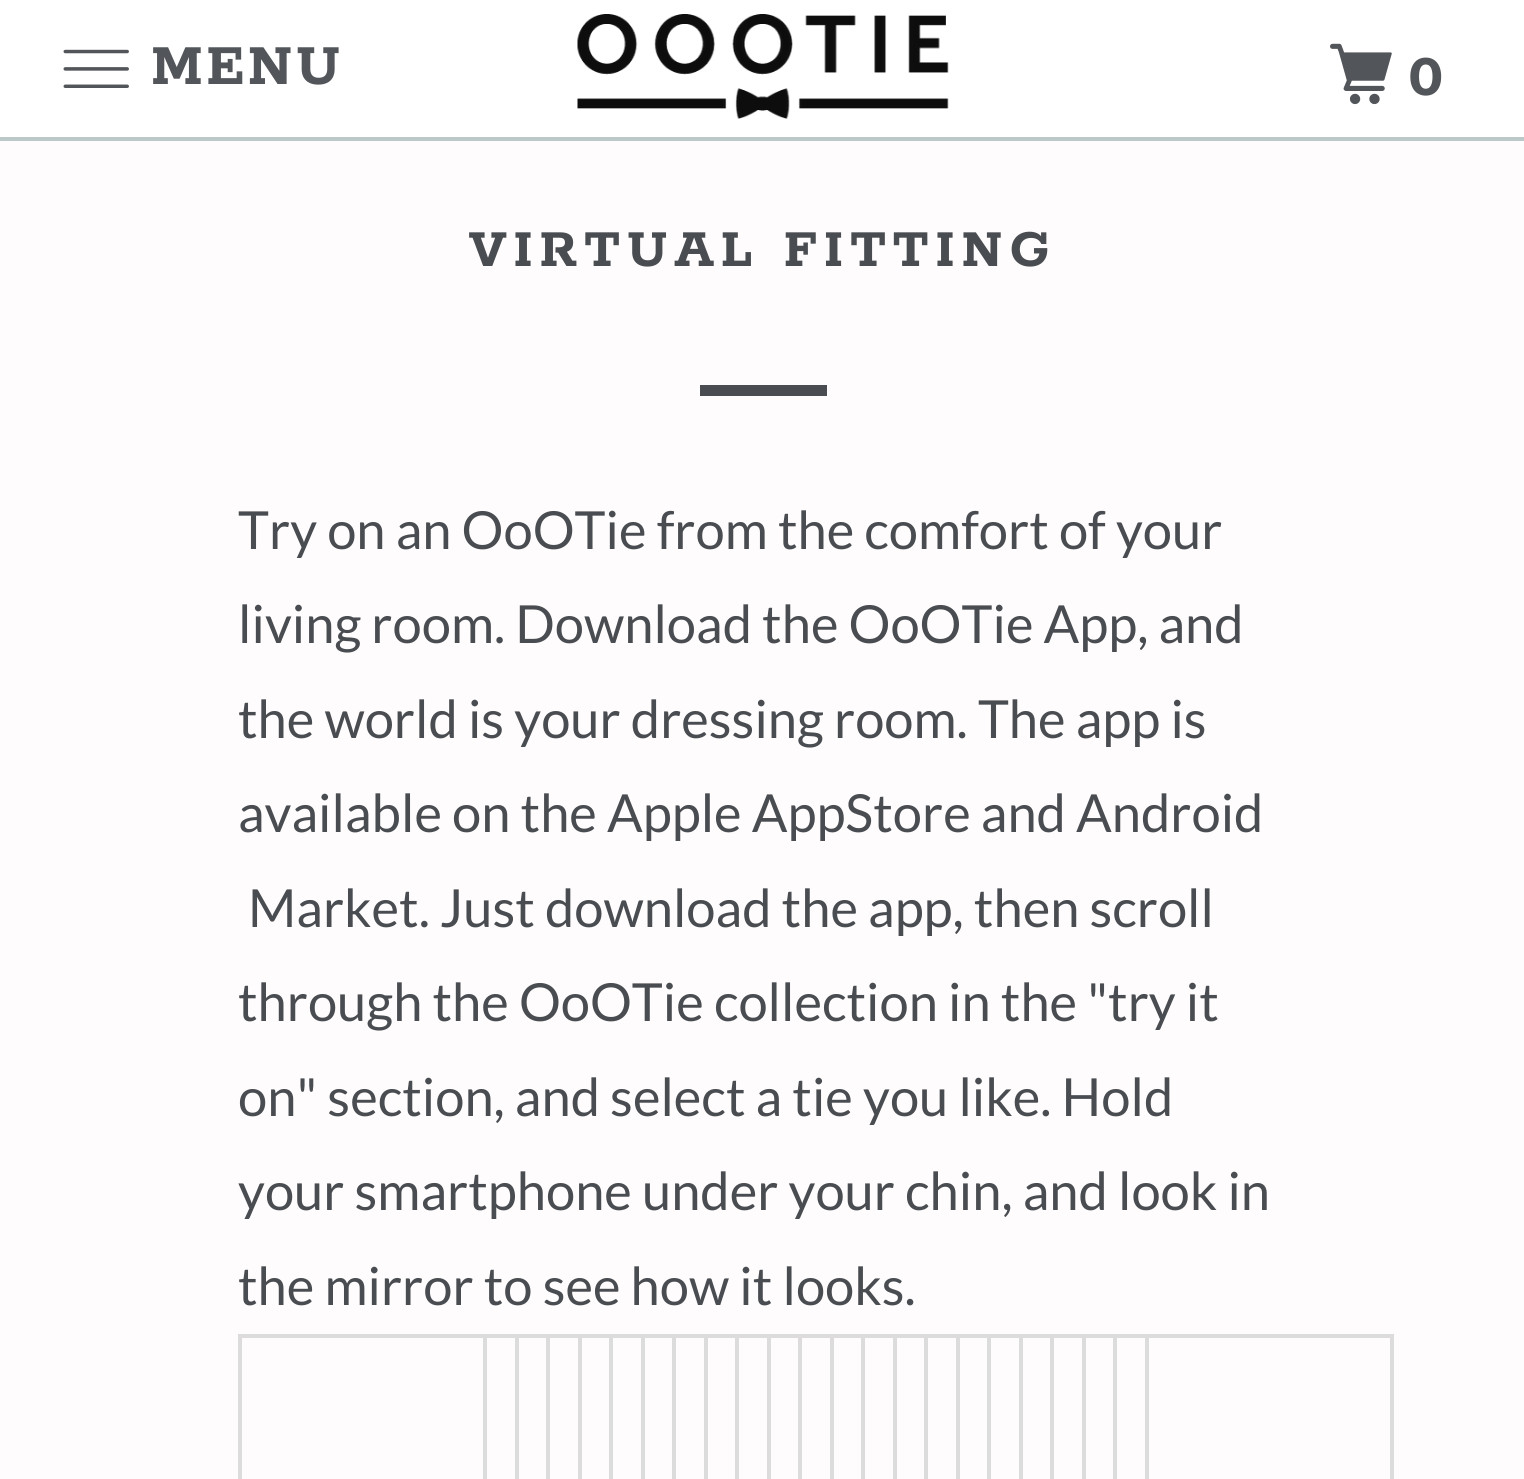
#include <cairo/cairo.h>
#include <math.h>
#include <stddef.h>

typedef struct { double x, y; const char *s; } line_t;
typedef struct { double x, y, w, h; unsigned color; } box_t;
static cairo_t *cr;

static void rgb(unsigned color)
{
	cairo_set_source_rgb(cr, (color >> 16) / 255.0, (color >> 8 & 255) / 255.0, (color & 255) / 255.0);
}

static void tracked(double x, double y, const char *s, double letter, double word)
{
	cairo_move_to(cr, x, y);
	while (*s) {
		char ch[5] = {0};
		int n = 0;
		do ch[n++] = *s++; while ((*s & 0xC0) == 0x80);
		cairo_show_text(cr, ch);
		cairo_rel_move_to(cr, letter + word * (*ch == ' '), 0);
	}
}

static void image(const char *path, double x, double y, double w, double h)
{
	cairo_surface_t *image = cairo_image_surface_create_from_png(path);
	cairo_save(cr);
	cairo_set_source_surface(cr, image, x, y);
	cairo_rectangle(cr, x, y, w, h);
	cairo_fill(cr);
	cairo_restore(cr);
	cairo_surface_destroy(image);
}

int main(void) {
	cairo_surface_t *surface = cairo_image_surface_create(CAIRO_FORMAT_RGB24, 1524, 1479);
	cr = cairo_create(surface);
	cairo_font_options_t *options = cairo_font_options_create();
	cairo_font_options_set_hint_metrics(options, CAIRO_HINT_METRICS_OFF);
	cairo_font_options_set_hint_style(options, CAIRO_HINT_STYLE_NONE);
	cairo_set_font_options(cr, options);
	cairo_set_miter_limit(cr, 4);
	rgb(0xfefcfc);
	cairo_paint(cr);
	rgb(0xbcc9c9);
	cairo_rectangle(cr, 0, 137, 1524, 4);
	cairo_fill(cr);
	rgb(0xffffff);
	cairo_rectangle(cr, 0, 0, 1524, 137);
	cairo_fill(cr);
	image("img/1.png", 63, 49, 66, 39);
	image("img/2.png", 577, 14, 372, 105);
	image("img/3.png", 1330, 43, 62, 62);
	{
		static const box_t items[] = {
			{700, 385, 127, 11, 0x494c50},
			{238, 1334, 1155, 4, 0xdcdcdc},
			{483, 1334, 4, 145, 0xdcdcdc},
			{238, 1334, 4, 145, 0xdcdcdc},
			{515, 1334, 4, 145, 0xdcdcdc},
			{546, 1334, 4, 145, 0xdcdcdc},
			{578, 1334, 4, 145, 0xdcdcdc},
			{609, 1334, 4, 145, 0xdcdcdc},
			{641, 1334, 4, 145, 0xdcdcdc},
			{672, 1334, 4, 145, 0xdcdcdc},
			{704, 1334, 4, 145, 0xdcdcdc},
			{735, 1334, 4, 145, 0xdcdcdc},
			{767, 1334, 4, 145, 0xdcdcdc},
			{798, 1334, 4, 145, 0xdcdcdc},
			{830, 1334, 4, 145, 0xdcdcdc},
			{861, 1334, 4, 145, 0xdcdcdc},
			{893, 1334, 4, 145, 0xdcdcdc},
			{924, 1334, 4, 145, 0xdcdcdc},
			{956, 1334, 4, 145, 0xdcdcdc},
			{987, 1334, 4, 145, 0xdcdcdc},
			{1019, 1334, 4, 145, 0xdcdcdc},
			{1050, 1334, 4, 145, 0xdcdcdc},
			{1082, 1334, 4, 145, 0xdcdcdc},
			{1113, 1334, 4, 145, 0xdcdcdc},
			{1145, 1334, 4, 145, 0xdcdcdc},
			{1390, 1334, 4, 145, 0xdcdcdc},
		};
		for (size_t i = 0; i < sizeof items / sizeof *items; i++) {
			rgb(items[i].color);
			cairo_rectangle(cr, items[i].x, items[i].y, items[i].w, items[i].h);
			cairo_fill(cr);
		}
	}
	cairo_select_font_face(cr, "Rokkitt", CAIRO_FONT_SLANT_NORMAL, CAIRO_FONT_WEIGHT_BOLD);
	cairo_set_font_size(cr, 63);
	rgb(0x525559);
	tracked(151, 84, "MENU", 3.5, 0);
	tracked(1408, 95, "0", 3.5, 0);
	cairo_set_font_size(cr, 57.75);
	rgb(0x494c50);
	tracked(469, 266, "VIRTUAL FITTING", 7, 0);
	cairo_select_font_face(cr, "Lato", CAIRO_FONT_SLANT_NORMAL, CAIRO_FONT_WEIGHT_NORMAL);
	cairo_set_font_size(cr, 52.5);
	{
		static const line_t items[] = {
			{238, 549, "Try on an OoOTie from the comfort of your"},
			{238, 643, "living room. Download the OoOTie App, and"},
			{238, 738, "the world is your dressing room. The app is"},
			{238, 832, "available on the Apple AppStore and Android"},
			{248, 927, "Market. Just download the app, then scroll"},
			{238, 1021, "through the OoOTie collection in the \"try it"},
			{238, 1116, "on\" section, and select a tie you like. Hold"},
			{238, 1210, "your smartphone under your chin, and look in"},
			{238, 1305, "the mirror to see how it looks."},
		};
		for (size_t i = 0; i < sizeof items / sizeof *items; i++) {
			cairo_move_to(cr, items[i].x, items[i].y);
			cairo_show_text(cr, items[i].s);
		}
	}
	cairo_surface_write_to_png(surface, "page.png");
	cairo_font_options_destroy(options);
	cairo_destroy(cr);
	cairo_surface_destroy(surface);
	return 0;
}
